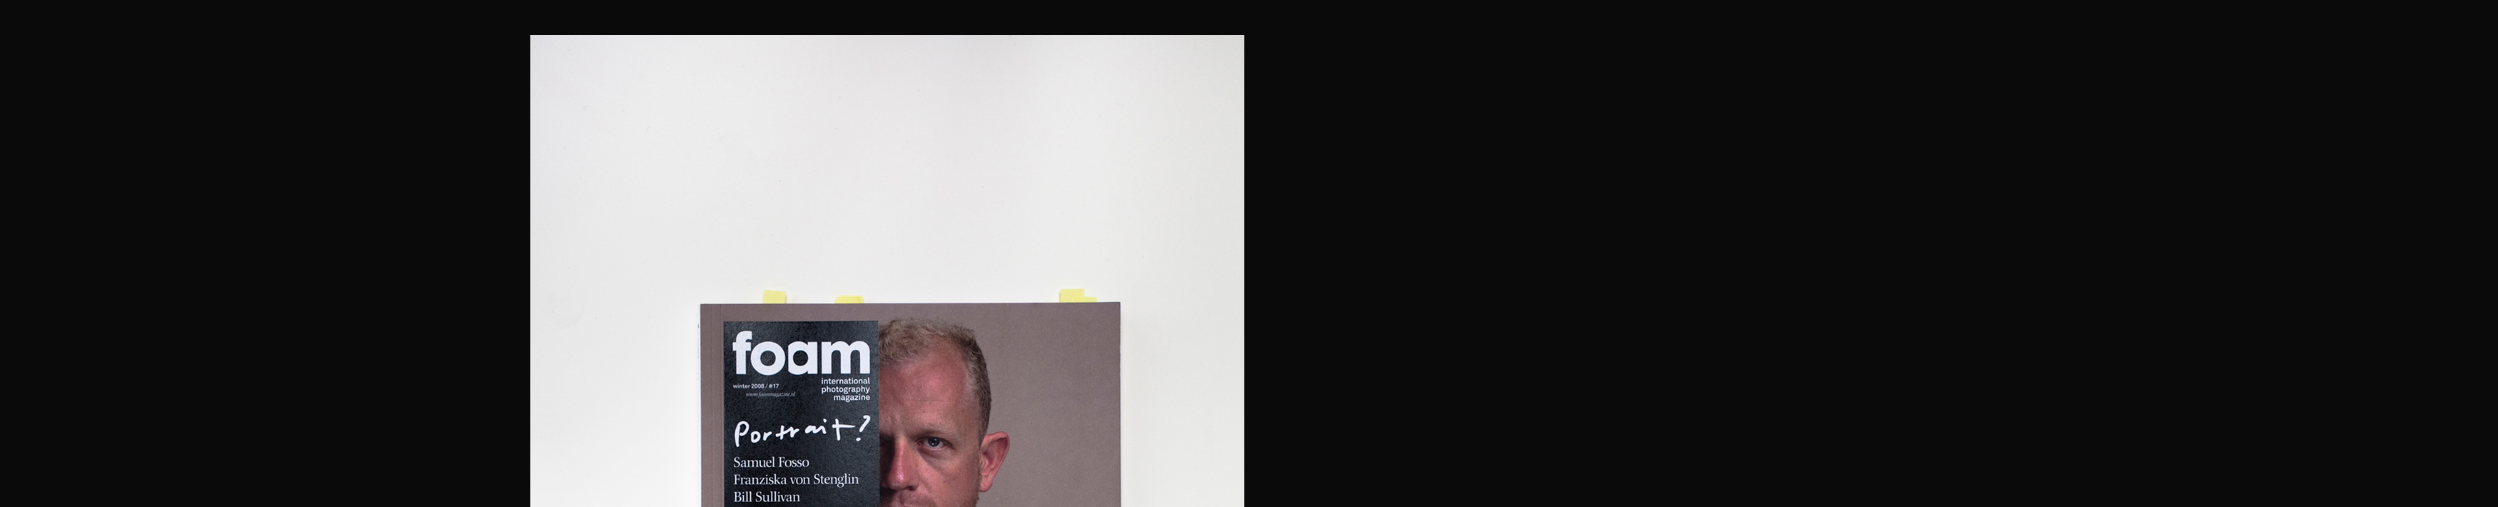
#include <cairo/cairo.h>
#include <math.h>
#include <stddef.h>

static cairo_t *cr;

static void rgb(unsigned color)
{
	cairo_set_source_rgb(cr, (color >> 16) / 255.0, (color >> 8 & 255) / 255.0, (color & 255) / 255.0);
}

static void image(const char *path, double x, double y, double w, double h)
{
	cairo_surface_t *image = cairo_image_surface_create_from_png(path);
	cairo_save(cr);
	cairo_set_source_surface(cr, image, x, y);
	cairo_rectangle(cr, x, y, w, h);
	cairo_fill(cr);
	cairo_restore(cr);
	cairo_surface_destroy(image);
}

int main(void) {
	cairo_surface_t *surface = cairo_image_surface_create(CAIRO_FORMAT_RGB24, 2498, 507);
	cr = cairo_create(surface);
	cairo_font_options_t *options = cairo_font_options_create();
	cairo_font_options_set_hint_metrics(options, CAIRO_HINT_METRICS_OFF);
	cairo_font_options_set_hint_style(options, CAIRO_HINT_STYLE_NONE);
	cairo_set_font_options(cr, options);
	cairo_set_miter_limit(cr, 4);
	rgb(0x0a0a0a);
	cairo_paint(cr);
	image("img/1.png", 530, 35, 715, 472);
	cairo_surface_write_to_png(surface, "page.png");
	cairo_font_options_destroy(options);
	cairo_destroy(cr);
	cairo_surface_destroy(surface);
	return 0;
}
